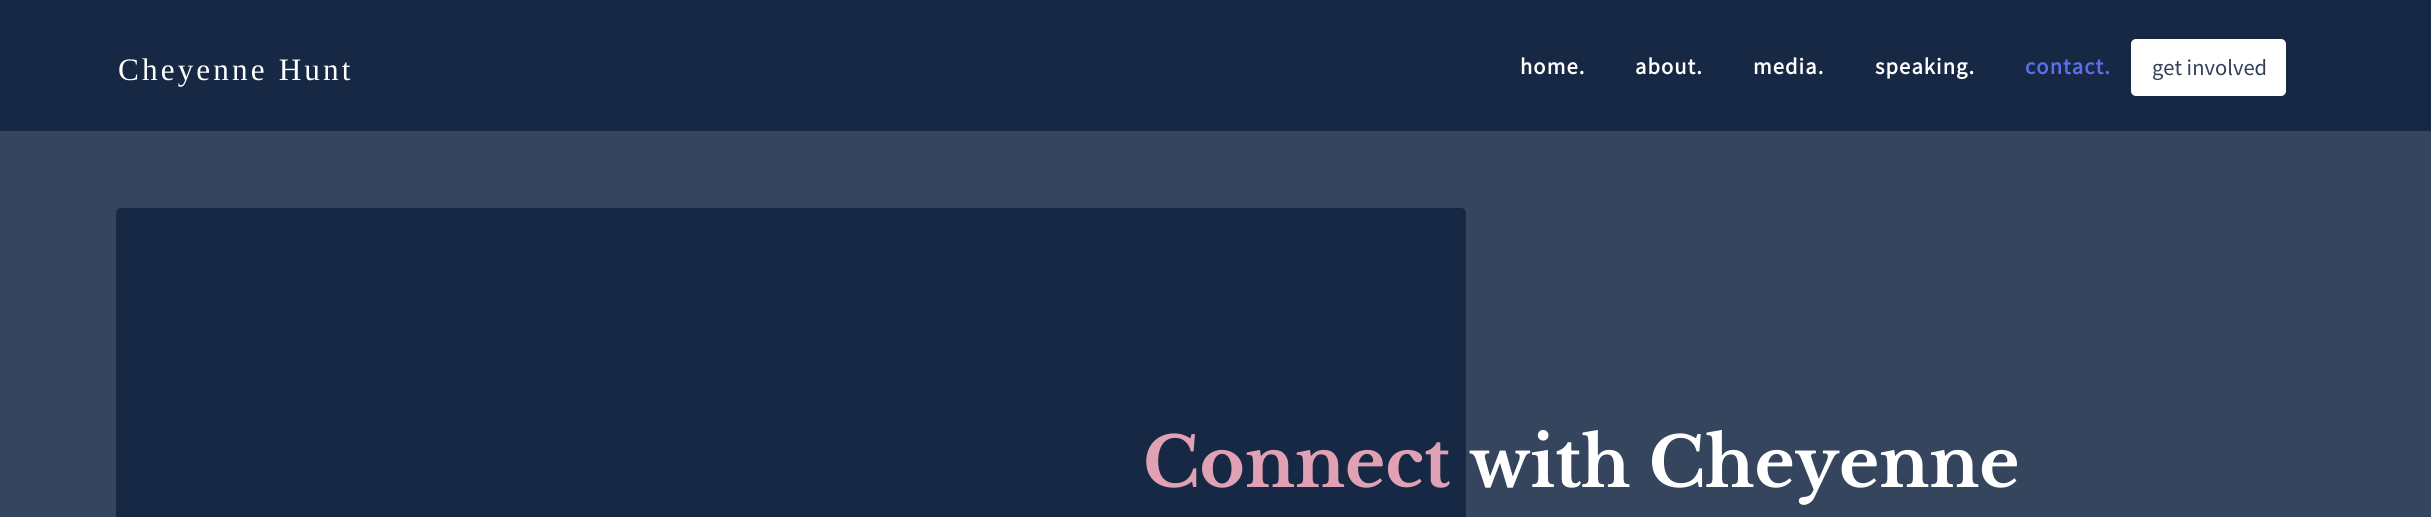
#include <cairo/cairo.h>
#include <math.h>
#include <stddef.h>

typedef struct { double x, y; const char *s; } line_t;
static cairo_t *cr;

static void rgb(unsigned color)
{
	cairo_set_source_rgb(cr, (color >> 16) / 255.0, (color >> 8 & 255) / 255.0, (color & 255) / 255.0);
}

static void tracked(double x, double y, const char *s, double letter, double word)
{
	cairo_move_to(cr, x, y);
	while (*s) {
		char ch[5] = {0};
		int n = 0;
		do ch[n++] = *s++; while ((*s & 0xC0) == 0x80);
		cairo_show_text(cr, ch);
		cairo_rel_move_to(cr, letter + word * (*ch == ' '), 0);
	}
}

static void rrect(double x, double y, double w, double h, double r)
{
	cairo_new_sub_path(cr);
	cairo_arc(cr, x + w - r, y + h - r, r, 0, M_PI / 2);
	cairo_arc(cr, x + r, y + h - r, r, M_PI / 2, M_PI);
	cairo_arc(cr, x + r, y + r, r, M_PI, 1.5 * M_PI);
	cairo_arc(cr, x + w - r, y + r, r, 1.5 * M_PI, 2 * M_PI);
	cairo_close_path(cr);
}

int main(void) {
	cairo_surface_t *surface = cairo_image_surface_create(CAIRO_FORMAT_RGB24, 2431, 517);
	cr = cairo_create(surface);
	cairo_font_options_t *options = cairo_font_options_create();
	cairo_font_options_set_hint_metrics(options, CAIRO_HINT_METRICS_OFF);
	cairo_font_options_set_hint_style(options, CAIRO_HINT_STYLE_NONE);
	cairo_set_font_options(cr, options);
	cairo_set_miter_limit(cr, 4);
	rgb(0x35455d);
	cairo_paint(cr);
	rgb(0x162843);
	cairo_rectangle(cr, 0, 0, 2431, 131);
	cairo_fill(cr);
	rgb(0xffffff);
	rrect(2131, 39, 155, 57, 5);
	cairo_fill(cr);
	rgb(0x162843);
	rrect(116, 208, 1350, 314, 5);
	cairo_fill(cr);
	cairo_select_font_face(cr, "Liberation Serif", CAIRO_FONT_SLANT_NORMAL, CAIRO_FONT_WEIGHT_NORMAL);
	cairo_set_font_size(cr, 31.25);
	rgb(0xffffff);
	tracked(118, 80, "Cheyenne Hunt", 3.1, 0);
	cairo_select_font_face(cr, "Source Sans Pro", CAIRO_FONT_SLANT_NORMAL, CAIRO_FONT_WEIGHT_BOLD);
	cairo_set_font_size(cr, 22.5);
	{
		static const line_t items[] = {
			{1520, 74, "home."},
			{1635, 74, "about."},
			{1753, 74, "media."},
			{1875, 74, "speaking."},
		};
		for (size_t i = 0; i < sizeof items / sizeof *items; i++) {
			tracked(items[i].x, items[i].y, items[i].s, 1.1, 0);
		}
	}
	rgb(0x5d6eee);
	tracked(2025, 74, "contact.", 1.1, 0);
	cairo_select_font_face(cr, "Source Sans Pro", CAIRO_FONT_SLANT_NORMAL, CAIRO_FONT_WEIGHT_NORMAL);
	rgb(0x324158);
	cairo_move_to(cr, 2152, 75);
	cairo_show_text(cr, "get involved");
	cairo_select_font_face(cr, "Libre Baskerville", CAIRO_FONT_SLANT_NORMAL, CAIRO_FONT_WEIGHT_BOLD);
	cairo_set_font_size(cr, 68.75);
	rgb(0xe1a1b4);
	cairo_move_to(cr, 1143, 487);
	cairo_show_text(cr, "Connect");
	rgb(0xffffff);
	cairo_move_to(cr, 1469, 487);
	cairo_show_text(cr, "with Cheyenne");
	cairo_surface_write_to_png(surface, "page.png");
	cairo_font_options_destroy(options);
	cairo_destroy(cr);
	cairo_surface_destroy(surface);
	return 0;
}
